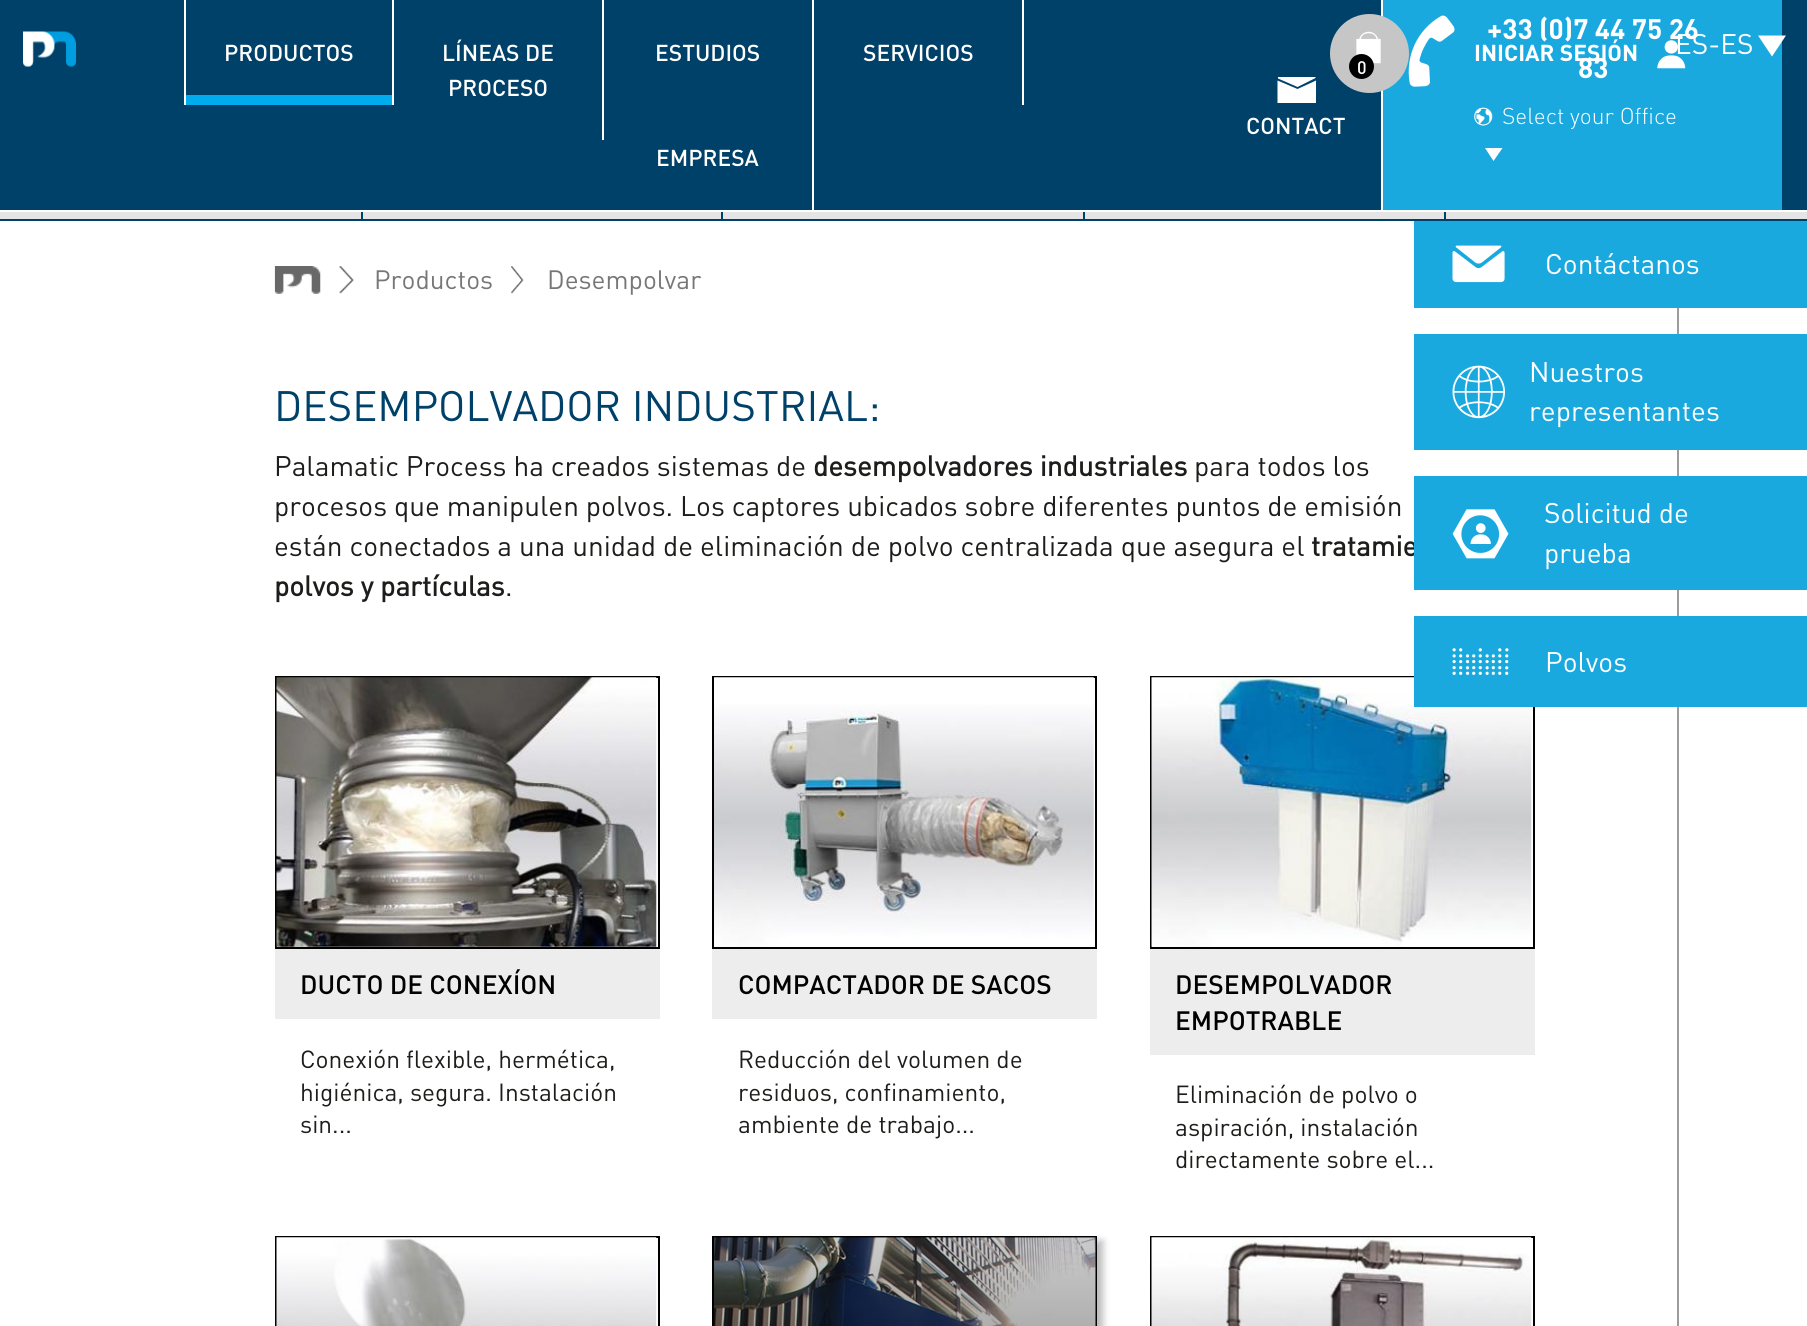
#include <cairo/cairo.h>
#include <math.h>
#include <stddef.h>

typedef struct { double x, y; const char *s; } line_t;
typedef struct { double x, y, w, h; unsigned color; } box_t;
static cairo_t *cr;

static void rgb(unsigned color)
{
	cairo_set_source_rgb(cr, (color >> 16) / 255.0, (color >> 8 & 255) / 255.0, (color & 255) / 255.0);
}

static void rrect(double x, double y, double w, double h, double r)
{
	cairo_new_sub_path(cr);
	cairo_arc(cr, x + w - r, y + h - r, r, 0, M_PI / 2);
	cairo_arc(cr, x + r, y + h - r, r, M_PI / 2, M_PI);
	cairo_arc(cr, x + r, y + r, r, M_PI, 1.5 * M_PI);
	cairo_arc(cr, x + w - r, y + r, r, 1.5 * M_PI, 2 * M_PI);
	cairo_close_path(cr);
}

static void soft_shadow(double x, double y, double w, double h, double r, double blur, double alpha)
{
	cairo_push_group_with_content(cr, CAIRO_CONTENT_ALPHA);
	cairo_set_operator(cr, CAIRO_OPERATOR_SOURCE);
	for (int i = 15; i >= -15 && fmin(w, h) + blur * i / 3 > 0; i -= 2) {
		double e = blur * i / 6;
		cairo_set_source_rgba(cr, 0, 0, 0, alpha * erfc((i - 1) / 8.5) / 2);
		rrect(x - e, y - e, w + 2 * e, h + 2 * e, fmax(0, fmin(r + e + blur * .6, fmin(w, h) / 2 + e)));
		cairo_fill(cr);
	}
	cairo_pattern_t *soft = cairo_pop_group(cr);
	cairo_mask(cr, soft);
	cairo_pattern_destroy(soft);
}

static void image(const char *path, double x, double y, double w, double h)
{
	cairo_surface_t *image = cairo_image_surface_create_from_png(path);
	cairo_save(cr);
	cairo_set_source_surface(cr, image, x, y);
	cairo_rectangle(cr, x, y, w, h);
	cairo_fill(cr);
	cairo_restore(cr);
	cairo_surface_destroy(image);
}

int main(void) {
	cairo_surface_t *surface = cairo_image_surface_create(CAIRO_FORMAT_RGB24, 1807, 1326);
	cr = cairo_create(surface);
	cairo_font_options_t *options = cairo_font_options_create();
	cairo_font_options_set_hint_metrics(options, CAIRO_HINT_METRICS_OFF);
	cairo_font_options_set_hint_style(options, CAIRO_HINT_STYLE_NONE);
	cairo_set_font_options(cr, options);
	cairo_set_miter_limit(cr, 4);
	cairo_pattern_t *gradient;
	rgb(0xffffff);
	cairo_paint(cr);
	{
		static const box_t items[] = {
			{0, 0, 1807, 210, 0x004169},
			{392, 0, 2, 105, 0xffffff},
			{184, 0, 2, 105, 0xffffff},
			{186, 95, 206, 10, 0x00aced},
			{602, 0, 2, 140, 0xffffff},
			{812, 0, 2, 210, 0xffffff},
			{1022, 0, 2, 105, 0xffffff},
			{1381, 0, 2, 210, 0xffffff},
		};
		for (size_t i = 0; i < sizeof items / sizeof *items; i++) {
			rgb(items[i].color);
			cairo_rectangle(cr, items[i].x, items[i].y, items[i].w, items[i].h);
			cairo_fill(cr);
		}
	}
	cairo_new_path(cr);
	cairo_move_to(cr, 1297.5, 89);
	cairo_line_to(cr, 1277.5, 80.5);
	cairo_line_to(cr, 1277.5, 103);
	cairo_line_to(cr, 1316, 103);
	cairo_line_to(cr, 1316, 80.5);
	cairo_close_path(cr);
	cairo_move_to(cr, 1278, 78.5);
	cairo_line_to(cr, 1297.5, 87);
	cairo_line_to(cr, 1315.5, 78);
	cairo_line_to(cr, 1315.5, 77);
	cairo_line_to(cr, 1278, 77);
	cairo_close_path(cr);
	cairo_fill(cr);
	rgb(0x1aa9df);
	cairo_rectangle(cr, 1383, 0, 399, 210);
	cairo_fill(cr);
	image("img/1.png", 1408, 15, 47, 72);
	image("img/2.png", 1474, 107, 19, 19);
	rgb(0xffffff);
	cairo_new_path(cr);
	cairo_move_to(cr, 1485, 148);
	cairo_line_to(cr, 1502.5, 148);
	cairo_line_to(cr, 1493.5, 161);
	cairo_close_path(cr);
	cairo_fill(cr);
	rgb(0xc7c6c6);
	cairo_arc(cr, 1369.5, 53.5, 39.5, 0, 2 * M_PI);
	cairo_fill(cr);
	image("img/4.png", 1356, 31, 25, 33);
	rgb(0x000000);
	cairo_arc(cr, 1361.5, 66.5, 12.5, 0, 2 * M_PI);
	cairo_fill(cr);
	image("img/5.png", 23, 31, 53, 36);
	rgb(0xffffff);
	cairo_new_path(cr);
	cairo_move_to(cr, 1758, 35.5);
	cairo_line_to(cr, 1786, 35.5);
	cairo_line_to(cr, 1772, 56.5);
	cairo_close_path(cr);
	cairo_fill(cr);
	image("img/6.png", 274, 266, 47, 28);
	image("img/7.png", 339, 266, 15, 28);
	image("img/8.png", 511, 266, 13, 28);
	cairo_rectangle(cr, 276, 677, 383, 271);
	rgb(0x000000);
	cairo_stroke(cr);
	image("img/9.png", 276, 677, 381, 270);
	rgb(0xeeeded);
	cairo_rectangle(cr, 275, 949, 385, 70);
	cairo_fill(cr);
	cairo_rectangle(cr, 713, 677, 383, 271);
	rgb(0x000000);
	cairo_stroke(cr);
	image("img/10.png", 714, 677, 380, 270);
	rgb(0xeeeded);
	cairo_rectangle(cr, 712, 949, 385, 70);
	cairo_fill(cr);
	cairo_rectangle(cr, 1151, 677, 383, 271);
	rgb(0x000000);
	cairo_stroke(cr);
	image("img/11.png", 1151, 677, 381, 270);
	rgb(0xeeeded);
	cairo_rectangle(cr, 1150, 949, 385, 106);
	cairo_fill(cr);
	cairo_rectangle(cr, 276, 1237, 383, 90);
	rgb(0x000000);
	cairo_stroke(cr);
	image("img/12.png", 276, 1237, 381, 89);
	rgb(0xbbbbbb);
	soft_shadow(718, 1241, 385, 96, 0, 3.5, 1);
	cairo_rectangle(cr, 713, 1237, 383, 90);
	rgb(0x000000);
	cairo_stroke(cr);
	image("img/13.png", 714, 1237, 382, 89);
	gradient = cairo_pattern_create_linear(905, 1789, 905, 1237);
	cairo_pattern_add_color_stop_rgba(gradient, 0, 0, 0, 0, 0.9);
	cairo_pattern_add_color_stop_rgba(gradient, 1, 0, 0, 0, 0.2);
	cairo_set_source(cr, gradient);
	cairo_pattern_destroy(gradient);
	cairo_rectangle(cr, 714, 1237, 382, 89);
	cairo_fill(cr);
	cairo_rectangle(cr, 1151, 1237, 383, 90);
	rgb(0x000000);
	cairo_stroke(cr);
	image("img/14.png", 1151, 1237, 381, 89);
	{
		static const box_t items[] = {
			{0, 212, 1807, 7, 0xe5e5e5},
			{0, 219, 1807, 2, 0x004169},
			{361, 212, 2, 7, 0x004169},
			{721, 212, 2, 7, 0x004169},
			{1083, 212, 2, 7, 0x004169},
			{1444, 212, 2, 7, 0x004169},
			{1414, 221, 393, 87, 0x1aa9df},
		};
		for (size_t i = 0; i < sizeof items / sizeof *items; i++) {
			rgb(items[i].color);
			cairo_rectangle(cr, items[i].x, items[i].y, items[i].w, items[i].h);
			cairo_fill(cr);
		}
	}
	image("img/15.png", 1452, 245, 53, 38);
	rgb(0x9d9c9b);
	cairo_rectangle(cr, 1677, 308, 2, 1018);
	cairo_fill(cr);
	rgb(0x1aa9df);
	cairo_rectangle(cr, 1414, 334, 393, 116);
	cairo_fill(cr);
	image("img/16.png", 1452, 365, 53, 54);
	cairo_rectangle(cr, 1414, 616, 393, 91);
	cairo_fill(cr);
	image("img/18.png", 1452, 648, 57, 27);
	cairo_select_font_face(cr, "DIN Medium", CAIRO_FONT_SLANT_NORMAL, CAIRO_FONT_WEIGHT_NORMAL);
	cairo_set_font_size(cr, 22.75);
	rgb(0xffffff);
	{
		static const line_t items[] = {
			{224, 61, "PRODUCTOS"},
			{442, 61, "LÍNEAS DE"},
			{448, 96, "PROCESO"},
			{655, 61, "ESTUDIOS"},
			{863, 61, "SERVICIOS"},
			{656, 166, "EMPRESA"},
			{1246, 134, "CONTACT"},
		};
		for (size_t i = 0; i < sizeof items / sizeof *items; i++) {
			cairo_move_to(cr, items[i].x, items[i].y);
			cairo_show_text(cr, items[i].s);
		}
	}
	cairo_select_font_face(cr, "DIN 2", CAIRO_FONT_SLANT_NORMAL, CAIRO_FONT_WEIGHT_BOLD);
	cairo_set_font_size(cr, 28);
	cairo_move_to(cr, 1487, 39);
	cairo_show_text(cr, "+33 (0)7 44 75 26");
	cairo_move_to(cr, 1578, 78);
	cairo_show_text(cr, "83");
	cairo_select_font_face(cr, "DIN Light", CAIRO_FONT_SLANT_NORMAL, CAIRO_FONT_WEIGHT_NORMAL);
	cairo_set_font_size(cr, 22.75);
	cairo_move_to(cr, 1502, 124);
	cairo_show_text(cr, "Select your Office");
	cairo_select_font_face(cr, "DIN 2", CAIRO_FONT_SLANT_NORMAL, CAIRO_FONT_WEIGHT_BOLD);
	cairo_move_to(cr, 1474, 61);
	cairo_show_text(cr, "INICIAR SESIÓN");
	image("img/3.png", 1657, 40, 29, 29);
	cairo_select_font_face(cr, "DIN Medium", CAIRO_FONT_SLANT_NORMAL, CAIRO_FONT_WEIGHT_NORMAL);
	cairo_set_font_size(cr, 18);
	cairo_move_to(cr, 1357, 74);
	cairo_show_text(cr, "0");
	cairo_select_font_face(cr, "DIN", CAIRO_FONT_SLANT_NORMAL, CAIRO_FONT_WEIGHT_NORMAL);
	cairo_set_font_size(cr, 28);
	cairo_move_to(cr, 1675, 54);
	cairo_show_text(cr, "ES-ES");
	cairo_set_font_size(cr, 26.25);
	rgb(0x777777);
	cairo_move_to(cr, 374, 289);
	cairo_show_text(cr, "Productos");
	cairo_move_to(cr, 547, 289);
	cairo_show_text(cr, "Desempolvar");
	cairo_set_font_size(cr, 42);
	rgb(0x004169);
	cairo_move_to(cr, 274, 421);
	cairo_show_text(cr, "DESEMPOLVADOR INDUSTRIAL:");
	cairo_set_font_size(cr, 28);
	rgb(0x1d1d1b);
	cairo_move_to(cr, 274, 476);
	cairo_show_text(cr, "Palamatic Process ha creados sistemas de");
	cairo_select_font_face(cr, "DIN", CAIRO_FONT_SLANT_NORMAL, CAIRO_FONT_WEIGHT_BOLD);
	cairo_move_to(cr, 813, 476);
	cairo_show_text(cr, "desempolvadores industriales");
	cairo_select_font_face(cr, "DIN", CAIRO_FONT_SLANT_NORMAL, CAIRO_FONT_WEIGHT_NORMAL);
	{
		static const line_t items[] = {
			{1194, 476, "para todos los"},
			{274, 516, "procesos que manipulen polvos. Los captores ubicados sobre diferentes puntos de emisión"},
			{274, 556, "están conectados a una unidad de eliminación de polvo centralizada que asegura el"},
		};
		for (size_t i = 0; i < sizeof items / sizeof *items; i++) {
			cairo_move_to(cr, items[i].x, items[i].y);
			cairo_show_text(cr, items[i].s);
		}
	}
	cairo_select_font_face(cr, "DIN", CAIRO_FONT_SLANT_NORMAL, CAIRO_FONT_WEIGHT_BOLD);
	cairo_move_to(cr, 1311, 556);
	cairo_show_text(cr, "tratamie");
	cairo_move_to(cr, 274, 596);
	cairo_show_text(cr, "polvos y partículas");
	cairo_select_font_face(cr, "DIN", CAIRO_FONT_SLANT_NORMAL, CAIRO_FONT_WEIGHT_NORMAL);
	cairo_move_to(cr, 505, 596);
	cairo_show_text(cr, ".");
	cairo_select_font_face(cr, "DIN Medium", CAIRO_FONT_SLANT_NORMAL, CAIRO_FONT_WEIGHT_NORMAL);
	cairo_set_font_size(cr, 26.25);
	rgb(0x000000);
	cairo_move_to(cr, 300, 994);
	cairo_show_text(cr, "DUCTO DE CONEXÍON");
	cairo_select_font_face(cr, "DIN", CAIRO_FONT_SLANT_NORMAL, CAIRO_FONT_WEIGHT_NORMAL);
	cairo_set_font_size(cr, 24.5);
	rgb(0x1d1d1b);
	{
		static const line_t items[] = {
			{300, 1068, "Conexión flexible, hermética,"},
			{300, 1101, "higiénica, segura. Instalación"},
			{300, 1133, "sin..."},
		};
		for (size_t i = 0; i < sizeof items / sizeof *items; i++) {
			cairo_move_to(cr, items[i].x, items[i].y);
			cairo_show_text(cr, items[i].s);
		}
	}
	cairo_select_font_face(cr, "DIN Medium", CAIRO_FONT_SLANT_NORMAL, CAIRO_FONT_WEIGHT_NORMAL);
	cairo_set_font_size(cr, 26.25);
	rgb(0x000000);
	cairo_move_to(cr, 738, 994);
	cairo_show_text(cr, "COMPACTADOR DE SACOS");
	cairo_select_font_face(cr, "DIN", CAIRO_FONT_SLANT_NORMAL, CAIRO_FONT_WEIGHT_NORMAL);
	cairo_set_font_size(cr, 24.5);
	rgb(0x1d1d1b);
	{
		static const line_t items[] = {
			{738, 1068, "Reducción del volumen de"},
			{738, 1101, "residuos, confinamiento,"},
			{738, 1133, "ambiente de trabajo..."},
		};
		for (size_t i = 0; i < sizeof items / sizeof *items; i++) {
			cairo_move_to(cr, items[i].x, items[i].y);
			cairo_show_text(cr, items[i].s);
		}
	}
	cairo_select_font_face(cr, "DIN Medium", CAIRO_FONT_SLANT_NORMAL, CAIRO_FONT_WEIGHT_NORMAL);
	cairo_set_font_size(cr, 26.25);
	rgb(0x000000);
	cairo_move_to(cr, 1175, 994);
	cairo_show_text(cr, "DESEMPOLVADOR");
	cairo_move_to(cr, 1175, 1030);
	cairo_show_text(cr, "EMPOTRABLE");
	cairo_select_font_face(cr, "DIN", CAIRO_FONT_SLANT_NORMAL, CAIRO_FONT_WEIGHT_NORMAL);
	cairo_set_font_size(cr, 24.5);
	rgb(0x1d1d1b);
	{
		static const line_t items[] = {
			{1175, 1103, "Eliminación de polvo o"},
			{1175, 1136, "aspiración, instalación"},
			{1175, 1168, "directamente sobre el..."},
		};
		for (size_t i = 0; i < sizeof items / sizeof *items; i++) {
			cairo_move_to(cr, items[i].x, items[i].y);
			cairo_show_text(cr, items[i].s);
		}
	}
	cairo_set_font_size(cr, 28);
	rgb(0xffffff);
	{
		static const line_t items[] = {
			{1545, 274, "Contáctanos"},
			{1529, 382, "Nuestros"},
			{1529, 421, "representantes"},
		};
		for (size_t i = 0; i < sizeof items / sizeof *items; i++) {
			cairo_move_to(cr, items[i].x, items[i].y);
			cairo_show_text(cr, items[i].s);
		}
	}
	rgb(0x1aa9df);
	cairo_rectangle(cr, 1414, 476, 393, 114);
	cairo_fill(cr);
	image("img/17.png", 1452, 509, 57, 50);
	rgb(0xffffff);
	{
		static const line_t items[] = {
			{1544, 523, "Solicitud de"},
			{1544, 563, "prueba"},
			{1545, 672, "Polvos"},
		};
		for (size_t i = 0; i < sizeof items / sizeof *items; i++) {
			cairo_move_to(cr, items[i].x, items[i].y);
			cairo_show_text(cr, items[i].s);
		}
	}
	cairo_surface_write_to_png(surface, "page.png");
	cairo_font_options_destroy(options);
	cairo_destroy(cr);
	cairo_surface_destroy(surface);
	return 0;
}
